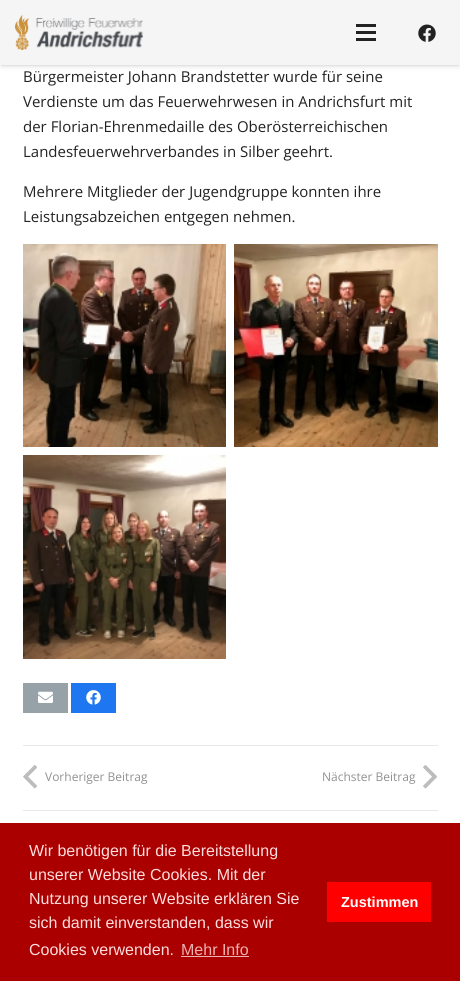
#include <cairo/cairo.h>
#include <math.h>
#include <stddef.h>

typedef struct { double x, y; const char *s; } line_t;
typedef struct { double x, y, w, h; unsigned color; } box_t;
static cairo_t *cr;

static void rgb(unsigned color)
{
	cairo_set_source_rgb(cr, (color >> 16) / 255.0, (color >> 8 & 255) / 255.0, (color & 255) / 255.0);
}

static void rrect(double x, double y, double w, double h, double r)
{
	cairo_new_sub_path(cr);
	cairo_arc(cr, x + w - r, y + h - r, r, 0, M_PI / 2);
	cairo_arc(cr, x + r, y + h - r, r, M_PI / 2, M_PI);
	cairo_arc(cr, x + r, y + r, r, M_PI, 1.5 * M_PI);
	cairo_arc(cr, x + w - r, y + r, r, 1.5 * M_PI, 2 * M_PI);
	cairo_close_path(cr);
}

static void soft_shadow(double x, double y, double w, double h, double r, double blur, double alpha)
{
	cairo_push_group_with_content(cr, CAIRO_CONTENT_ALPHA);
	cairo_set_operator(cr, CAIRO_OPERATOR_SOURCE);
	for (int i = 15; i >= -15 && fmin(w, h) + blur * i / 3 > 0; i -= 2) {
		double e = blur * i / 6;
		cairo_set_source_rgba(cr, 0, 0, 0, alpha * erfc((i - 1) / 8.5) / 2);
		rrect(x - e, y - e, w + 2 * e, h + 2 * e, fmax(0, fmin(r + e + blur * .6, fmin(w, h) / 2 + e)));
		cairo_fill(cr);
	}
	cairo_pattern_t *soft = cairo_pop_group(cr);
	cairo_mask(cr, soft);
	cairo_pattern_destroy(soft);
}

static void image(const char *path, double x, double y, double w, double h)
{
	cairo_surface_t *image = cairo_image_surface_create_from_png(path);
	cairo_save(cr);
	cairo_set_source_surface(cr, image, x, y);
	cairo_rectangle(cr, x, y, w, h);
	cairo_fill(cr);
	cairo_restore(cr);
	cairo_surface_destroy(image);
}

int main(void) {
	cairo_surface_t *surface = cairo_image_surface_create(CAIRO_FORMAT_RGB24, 460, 981);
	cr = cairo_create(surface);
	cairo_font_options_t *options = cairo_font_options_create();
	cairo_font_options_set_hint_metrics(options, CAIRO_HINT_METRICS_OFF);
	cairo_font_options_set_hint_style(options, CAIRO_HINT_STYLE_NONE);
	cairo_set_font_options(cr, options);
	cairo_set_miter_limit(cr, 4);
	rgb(0xffffff);
	cairo_paint(cr);
	rgb(0x000000);
	soft_shadow(1, 3, 458, 63, 0, 0.5, 0.05);
	soft_shadow(1, 4, 458, 63, 0, 2.5, 0.1);
	rgb(0xf5f5f5);
	cairo_rectangle(cr, 0, 0, 460, 65);
	cairo_fill(cr);
	image("img/1.png", 15, 15, 128, 35);
	{
		static const box_t items[] = {
			{356, 31, 20, 3, 0x222222},
			{356, 24, 20, 3, 0x222222},
			{356, 38, 20, 3, 0x222222},
		};
		for (size_t i = 0; i < sizeof items / sizeof *items; i++) {
			rgb(items[i].color);
			cairo_rectangle(cr, items[i].x, items[i].y, items[i].w, items[i].h);
			cairo_fill(cr);
		}
	}
	image("img/2.png", 418, 24, 18, 18);
	image("img/3.png", 23, 244, 203, 203);
	image("img/4.png", 234, 244, 204, 203);
	image("img/5.png", 23, 455, 203, 204);
	rgb(0x96a2a8);
	cairo_rectangle(cr, 23, 683, 45, 30);
	cairo_fill(cr);
	image("img/6.png", 38, 691, 15, 12);
	rgb(0x1e77f0);
	cairo_rectangle(cr, 71, 683, 45, 30);
	cairo_fill(cr);
	image("img/7.png", 86, 690, 15, 15);
	rgb(0xe8e8e8);
	cairo_rectangle(cr, 23, 745, 415, 1);
	cairo_fill(cr);
	image("img/8.png", 23, 765, 14, 24);
	image("img/9.png", 423, 765, 14, 24);
	{
		static const box_t items[] = {
			{23, 810, 415, 1, 0xe8e8e8},
			{0, 823, 460, 158, 0xaa0000},
			{181, 956, 68, 1, 0xeeb1b1},
			{327, 882, 104, 40, 0xff0000},
		};
		for (size_t i = 0; i < sizeof items / sizeof *items; i++) {
			rgb(items[i].color);
			cairo_rectangle(cr, items[i].x, items[i].y, items[i].w, items[i].h);
			cairo_fill(cr);
		}
	}
	cairo_select_font_face(cr, "Open Sans", CAIRO_FONT_SLANT_NORMAL, CAIRO_FONT_WEIGHT_NORMAL);
	cairo_set_font_size(cr, 15);
	rgb(0x222222);
	{
		static const line_t items[] = {
			{23, 82, "Bürgermeister Johann Brandstetter wurde für seine"},
			{23, 107, "Verdienste um das Feuerwehrwesen in Andrichsfurt mit"},
			{23, 132, "der Florian-Ehrenmedaille des Oberösterreichischen"},
			{23, 157, "Landesfeuerwehrverbandes in Silber geehrt."},
			{23, 197, "Mehrere Mitglieder der Jugendgruppe konnten ihre"},
			{23, 222, "Leistungsabzeichen entgegen nehmen."},
		};
		for (size_t i = 0; i < sizeof items / sizeof *items; i++) {
			cairo_move_to(cr, items[i].x, items[i].y);
			cairo_show_text(cr, items[i].s);
		}
	}
	cairo_set_font_size(cr, 12);
	rgb(0x919191);
	cairo_move_to(cr, 45, 781);
	cairo_show_text(cr, "Vorheriger Beitrag");
	cairo_move_to(cr, 322, 781);
	cairo_show_text(cr, "Nächster Beitrag");
	cairo_select_font_face(cr, "Liberation Sans", CAIRO_FONT_SLANT_NORMAL, CAIRO_FONT_WEIGHT_NORMAL);
	cairo_set_font_size(cr, 16);
	rgb(0xffdddd);
	{
		static const line_t items[] = {
			{29, 856, "Wir benötigen für die Bereitstellung"},
			{29, 880, "unserer Website Cookies. Mit der"},
			{29, 904, "Nutzung unserer Website erklären Sie"},
			{29, 928, "sich damit einverstanden, dass wir"},
			{29, 955, "Cookies verwenden."},
		};
		for (size_t i = 0; i < sizeof items / sizeof *items; i++) {
			cairo_move_to(cr, items[i].x, items[i].y);
			cairo_show_text(cr, items[i].s);
		}
	}
	rgb(0xeeb1b1);
	cairo_move_to(cr, 181, 955);
	cairo_show_text(cr, "Mehr Info");
	cairo_select_font_face(cr, "Liberation Sans", CAIRO_FONT_SLANT_NORMAL, CAIRO_FONT_WEIGHT_BOLD);
	cairo_set_font_size(cr, 14.5);
	rgb(0xffffff);
	cairo_move_to(cr, 341, 907);
	cairo_show_text(cr, "Zustimmen");
	cairo_surface_write_to_png(surface, "page.png");
	cairo_font_options_destroy(options);
	cairo_destroy(cr);
	cairo_surface_destroy(surface);
	return 0;
}
